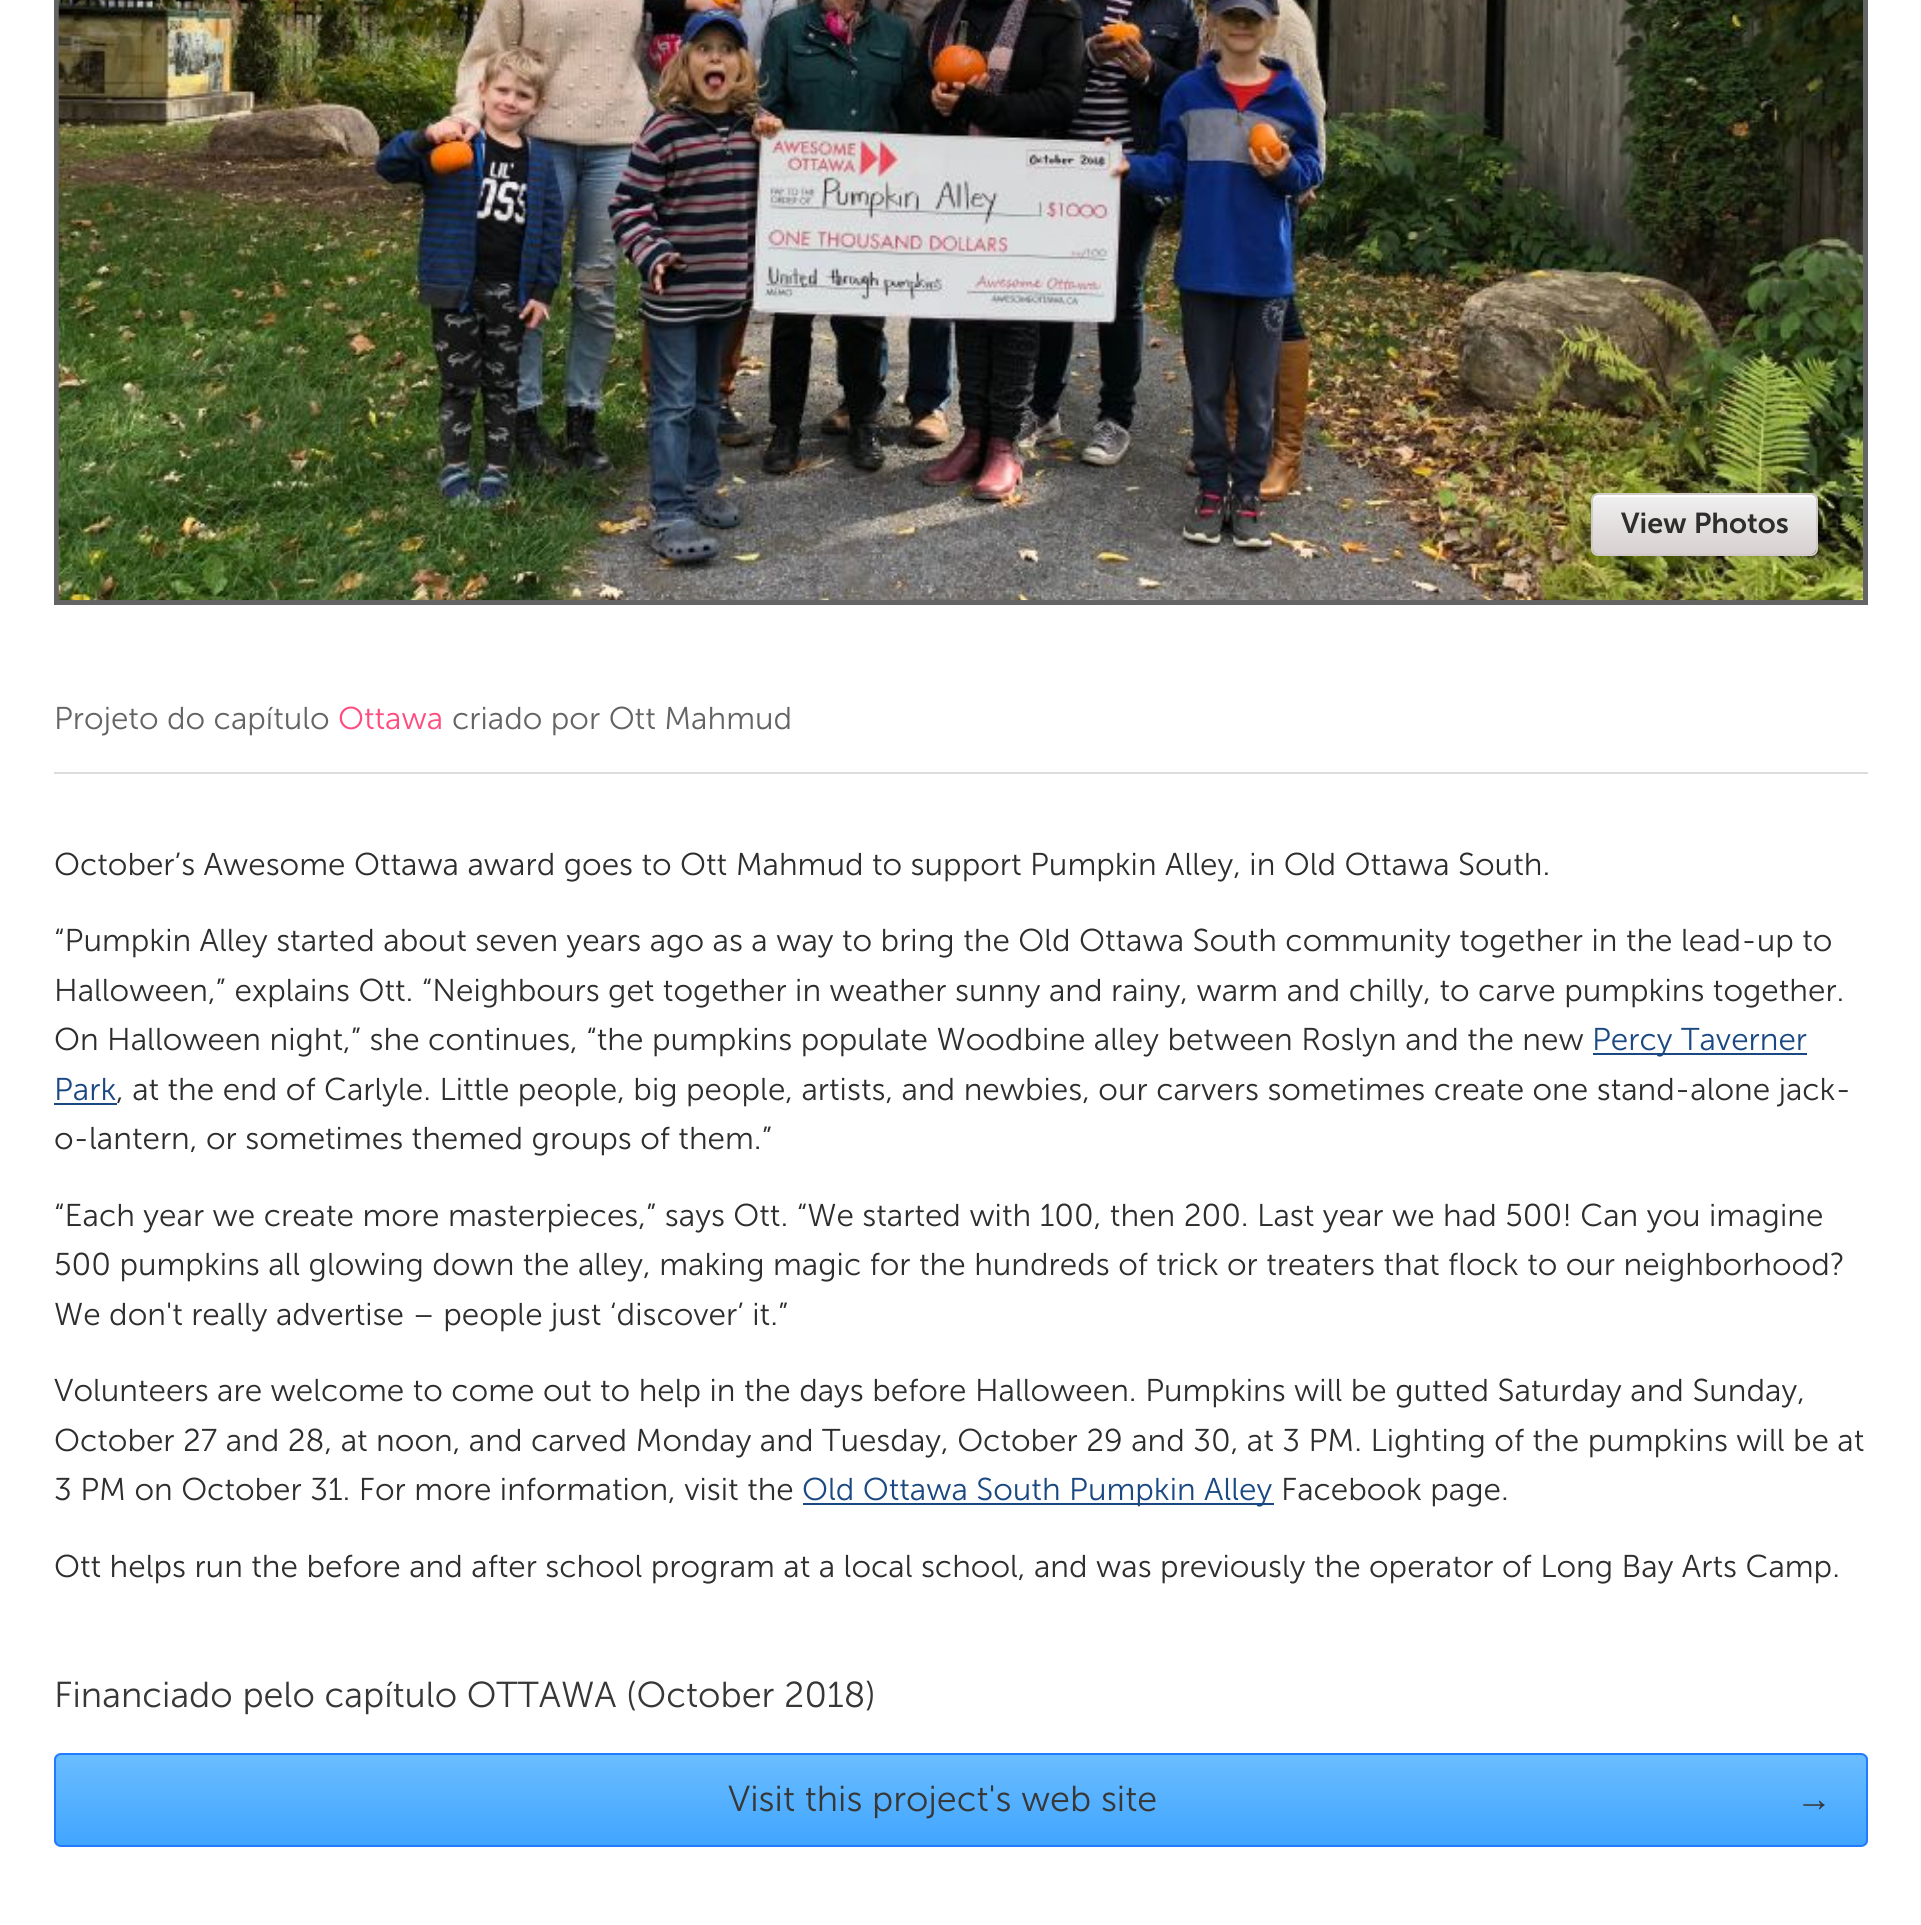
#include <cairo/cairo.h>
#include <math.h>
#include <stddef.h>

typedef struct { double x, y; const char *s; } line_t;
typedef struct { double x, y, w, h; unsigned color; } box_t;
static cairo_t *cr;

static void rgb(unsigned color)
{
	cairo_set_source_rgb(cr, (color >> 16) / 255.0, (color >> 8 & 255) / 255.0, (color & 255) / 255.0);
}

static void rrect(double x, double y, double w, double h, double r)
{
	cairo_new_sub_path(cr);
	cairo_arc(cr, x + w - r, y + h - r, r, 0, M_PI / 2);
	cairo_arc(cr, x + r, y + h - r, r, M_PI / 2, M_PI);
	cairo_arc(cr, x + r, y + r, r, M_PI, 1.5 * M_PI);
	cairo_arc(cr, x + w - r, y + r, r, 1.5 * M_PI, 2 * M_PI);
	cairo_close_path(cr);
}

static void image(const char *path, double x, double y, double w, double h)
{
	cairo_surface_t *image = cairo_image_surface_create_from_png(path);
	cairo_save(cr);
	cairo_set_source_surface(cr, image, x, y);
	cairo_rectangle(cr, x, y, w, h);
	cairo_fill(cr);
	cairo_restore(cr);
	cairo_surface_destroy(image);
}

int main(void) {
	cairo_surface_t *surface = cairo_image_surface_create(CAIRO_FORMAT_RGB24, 1921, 1925);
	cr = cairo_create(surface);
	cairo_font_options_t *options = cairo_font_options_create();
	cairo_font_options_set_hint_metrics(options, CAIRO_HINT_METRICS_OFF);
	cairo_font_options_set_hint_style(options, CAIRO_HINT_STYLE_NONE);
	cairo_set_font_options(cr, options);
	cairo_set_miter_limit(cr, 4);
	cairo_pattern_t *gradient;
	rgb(0xffffff);
	cairo_paint(cr);
	rgb(0x646464);
	cairo_rectangle(cr, 54, 0, 1814, 605);
	cairo_fill(cr);
	image("img/1.png", 58, 0, 1805, 601);
	gradient = cairo_pattern_create_linear(1704, 495, 1704, 554);
	cairo_pattern_add_color_stop_rgba(gradient, 0, 0.941, 0.941, 0.941, 1);
	cairo_pattern_add_color_stop_rgba(gradient, 1, 0.847, 0.816, 0.816, 1);
	cairo_set_source(cr, gradient);
	cairo_pattern_destroy(gradient);
	rrect(1593, 495, 223, 59, 5);
	cairo_fill(cr);
	rgb(0xffffff);
	cairo_new_path(cr);
	cairo_move_to(cr, 1598, 497);
	cairo_line_to(cr, 1811, 497);
	cairo_curve_to(cr, 1814, 497, 1816, 499, 1816, 502);
	cairo_line_to(cr, 1816, 500);
	cairo_curve_to(cr, 1816, 497, 1814, 495, 1811, 495);
	cairo_line_to(cr, 1598, 495);
	cairo_curve_to(cr, 1595, 495, 1593, 497, 1593, 500);
	cairo_line_to(cr, 1593, 502);
	cairo_curve_to(cr, 1593, 499, 1595, 497, 1598, 497);
	cairo_close_path(cr);
	cairo_fill(cr);
	rrect(1592, 494, 225, 61, 6);
	rgb(0xd1c8c8);
	cairo_stroke(cr);
	{
		static const box_t items[] = {
			{54, 772, 1814, 2, 0xdcdcdc},
			{1593, 1053, 214, 2, 0x1a4882},
			{54, 1103, 63, 2, 0x1a4882},
			{803, 1503, 471, 2, 0x1a4882},
		};
		for (size_t i = 0; i < sizeof items / sizeof *items; i++) {
			rgb(items[i].color);
			cairo_rectangle(cr, items[i].x, items[i].y, items[i].w, items[i].h);
			cairo_fill(cr);
		}
	}
	cairo_save(cr);
	rrect(54, 1753, 1814, 94, 7);
	cairo_clip(cr);
	gradient = cairo_pattern_create_linear(961, 1755, 961, 1845);
	cairo_pattern_add_color_stop_rgba(gradient, 0, 0.416, 0.741, 1, 1);
	cairo_pattern_add_color_stop_rgba(gradient, 1, 0.255, 0.647, 1, 1);
	cairo_set_source(cr, gradient);
	cairo_pattern_destroy(gradient);
	cairo_rectangle(cr, 54, 1755, 1814, 90);
	cairo_fill(cr);
	cairo_restore(cr);
	rrect(55, 1754, 1812, 92, 6);
	rgb(0x227aff);
	cairo_stroke(cr);
	cairo_select_font_face(cr, "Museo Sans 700 SemiBold", CAIRO_FONT_SLANT_NORMAL, CAIRO_FONT_WEIGHT_NORMAL);
	cairo_set_font_size(cr, 28.75);
	rgb(0x2e2e2e);
	cairo_move_to(cr, 1621, 533);
	cairo_show_text(cr, "View Photos");
	cairo_select_font_face(cr, "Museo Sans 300 Light", CAIRO_FONT_SLANT_NORMAL, CAIRO_FONT_WEIGHT_NORMAL);
	cairo_set_font_size(cr, 31.5);
	rgb(0x646464);
	cairo_move_to(cr, 54, 729);
	cairo_show_text(cr, "Projeto do capítulo");
	rgb(0xff4b7e);
	cairo_move_to(cr, 338, 729);
	cairo_show_text(cr, "Ottawa");
	rgb(0x646464);
	cairo_move_to(cr, 452, 729);
	cairo_show_text(cr, "criado por Ott Mahmud");
	rgb(0x2e2e2e);
	{
		static const line_t items[] = {
			{54, 875, "October’s Awesome Ottawa award goes to Ott Mahmud to support Pumpkin Alley, in Old Ottawa South."},
			{54, 951, "“Pumpkin Alley started about seven years ago as a way to bring the Old Ottawa South community together in the lead-up to"},
			{54, 1001, "Halloween,” explains Ott. “Neighbours get together in weather sunny and rainy, warm and chilly, to carve pumpkins together."},
			{54, 1050, "On Halloween night,” she continues, “the pumpkins populate Woodbine alley between Roslyn and the new"},
		};
		for (size_t i = 0; i < sizeof items / sizeof *items; i++) {
			cairo_move_to(cr, items[i].x, items[i].y);
			cairo_show_text(cr, items[i].s);
		}
	}
	rgb(0x1a4882);
	cairo_move_to(cr, 1592, 1050);
	cairo_show_text(cr, "Percy Taverner");
	cairo_move_to(cr, 54, 1100);
	cairo_show_text(cr, "Park");
	rgb(0x2e2e2e);
	{
		static const line_t items[] = {
			{116, 1100, ", at the end of Carlyle. Little people, big people, artists, and newbies, our carvers sometimes create one stand-alone jack-"},
			{54, 1149, "o-lantern, or sometimes themed groups of them.”"},
			{54, 1226, "“Each year we create more masterpieces,” says Ott. “We started with 100, then 200. Last year we had 500! Can you imagine"},
			{54, 1275, "500 pumpkins all glowing down the alley, making magic for the hundreds of trick or treaters that flock to our neighborhood?"},
			{54, 1325, "We don't really advertise – people just ‘discover’ it.”"},
			{54, 1401, "Volunteers are welcome to come out to help in the days before Halloween. Pumpkins will be gutted Saturday and Sunday,"},
			{54, 1451, "October 27 and 28, at noon, and carved Monday and Tuesday, October 29 and 30, at 3 PM. Lighting of the pumpkins will be at"},
			{54, 1500, "3 PM on October 31. For more information, visit the"},
		};
		for (size_t i = 0; i < sizeof items / sizeof *items; i++) {
			cairo_move_to(cr, items[i].x, items[i].y);
			cairo_show_text(cr, items[i].s);
		}
	}
	rgb(0x1a4882);
	cairo_move_to(cr, 802, 1500);
	cairo_show_text(cr, "Old Ottawa South Pumpkin Alley");
	rgb(0x2e2e2e);
	cairo_move_to(cr, 1281, 1500);
	cairo_show_text(cr, "Facebook page.");
	cairo_move_to(cr, 54, 1577);
	cairo_show_text(cr, "Ott helps run the before and after school program at a local school, and was previously the operator of Long Bay Arts Camp.");
	cairo_set_font_size(cr, 36);
	rgb(0x373737);
	cairo_move_to(cr, 54, 1707);
	cairo_show_text(cr, "Financiado pelo capítulo OTTAWA (October 2018)");
	cairo_move_to(cr, 728, 1811);
	cairo_show_text(cr, "Visit this project's web site");
	cairo_select_font_face(cr, "Liberation Sans", CAIRO_FONT_SLANT_NORMAL, CAIRO_FONT_WEIGHT_NORMAL);
	cairo_move_to(cr, 1796, 1811);
	cairo_show_text(cr, "→");
	cairo_surface_write_to_png(surface, "page.png");
	cairo_font_options_destroy(options);
	cairo_destroy(cr);
	cairo_surface_destroy(surface);
	return 0;
}
